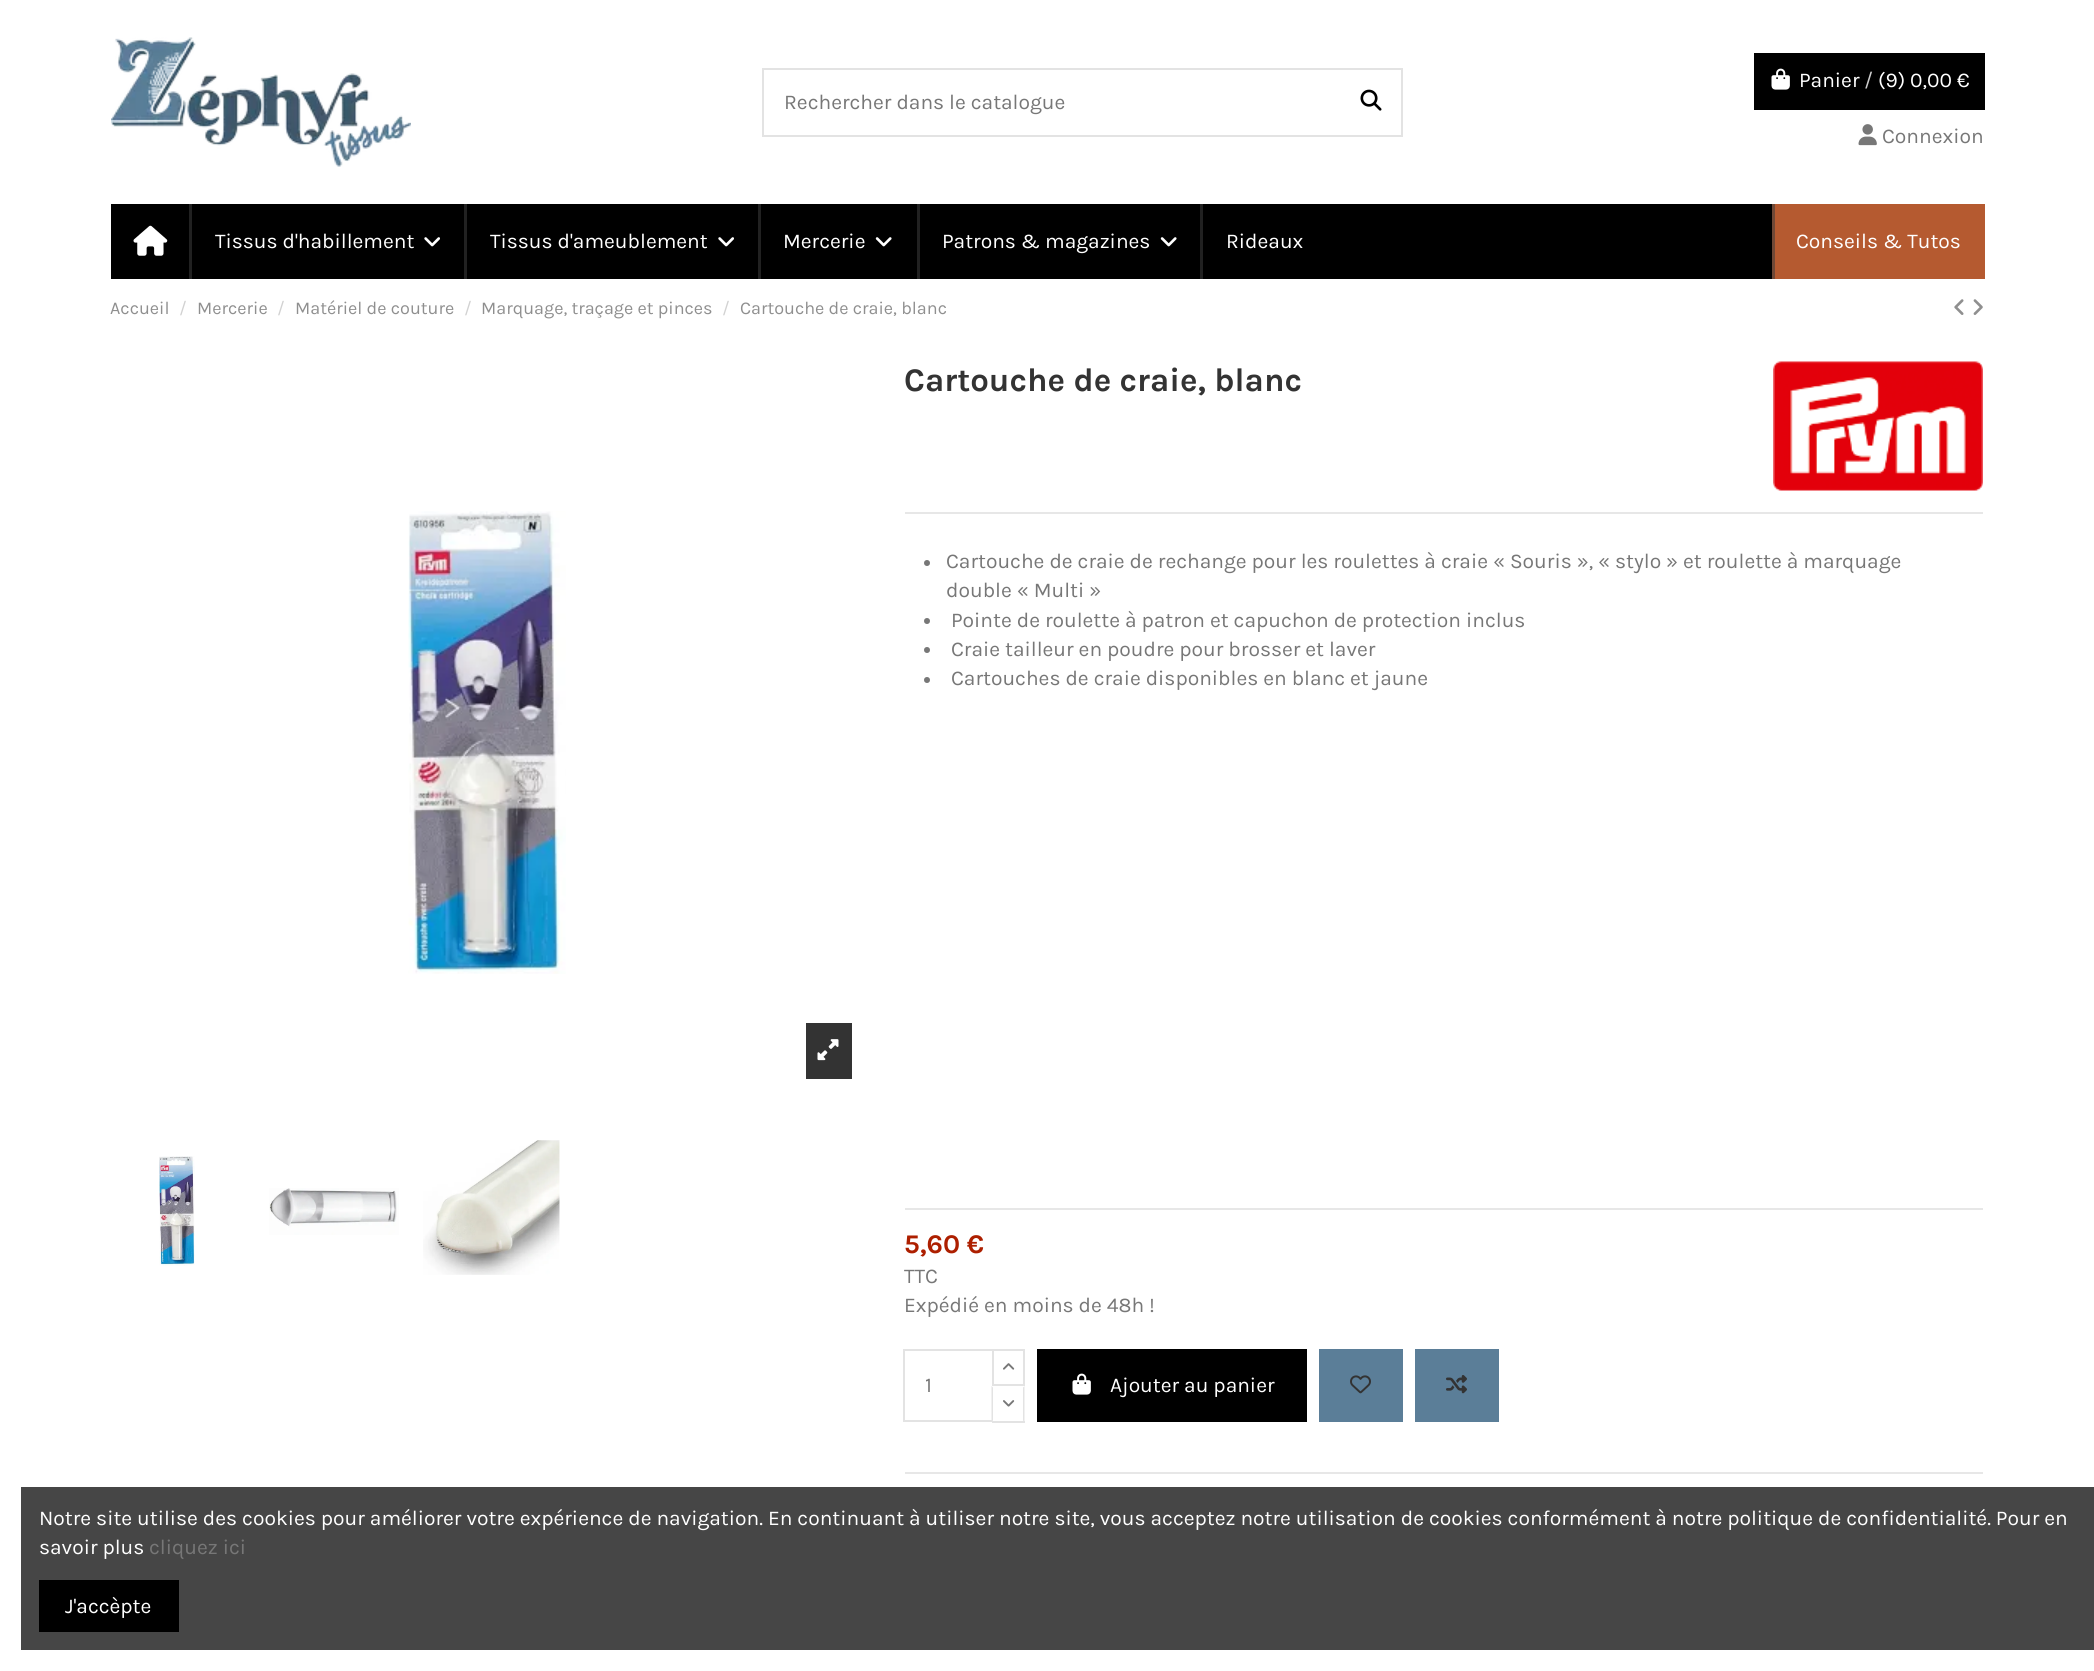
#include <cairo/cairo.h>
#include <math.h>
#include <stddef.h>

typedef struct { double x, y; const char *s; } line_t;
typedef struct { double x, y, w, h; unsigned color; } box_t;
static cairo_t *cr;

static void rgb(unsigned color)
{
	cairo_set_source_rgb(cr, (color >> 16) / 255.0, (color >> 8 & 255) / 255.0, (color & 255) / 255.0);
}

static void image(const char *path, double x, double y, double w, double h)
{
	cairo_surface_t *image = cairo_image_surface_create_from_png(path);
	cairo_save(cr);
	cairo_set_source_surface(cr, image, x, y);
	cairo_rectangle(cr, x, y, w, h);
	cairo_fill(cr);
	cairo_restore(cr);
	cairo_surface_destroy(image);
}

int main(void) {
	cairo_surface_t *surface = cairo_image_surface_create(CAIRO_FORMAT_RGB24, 2094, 1671);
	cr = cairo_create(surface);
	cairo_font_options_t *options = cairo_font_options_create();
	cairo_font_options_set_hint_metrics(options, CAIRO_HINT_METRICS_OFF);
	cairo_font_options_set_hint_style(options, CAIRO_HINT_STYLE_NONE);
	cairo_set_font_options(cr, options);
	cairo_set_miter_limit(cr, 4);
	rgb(0xffffff);
	cairo_paint(cr);
	image("img/1.png", 111, 37, 300, 130);
	cairo_rectangle(cr, 763, 69, 639, 67);
	rgb(0xe3e3e3);
	cairo_stroke(cr);
	image("img/2.png", 1360, 89, 22, 22);
	rgb(0x000000);
	cairo_rectangle(cr, 1754, 53, 231, 57);
	cairo_fill(cr);
	image("img/3.png", 1771, 68, 19, 22);
	image("img/4.png", 1858, 124, 19, 22);
	cairo_rectangle(cr, 111, 204, 1661, 75);
	cairo_fill(cr);
	image("img/5.png", 133, 225, 35, 31);
	rgb(0x212121);
	cairo_rectangle(cr, 189, 204, 3, 75);
	cairo_fill(cr);
	image("img/6.png", 424, 237, 16, 10);
	cairo_rectangle(cr, 464, 204, 3, 75);
	cairo_fill(cr);
	image("img/6.png", 718, 237, 16, 10);
	cairo_rectangle(cr, 758, 204, 3, 75);
	cairo_fill(cr);
	image("img/7.png", 875, 237, 17, 10);
	cairo_rectangle(cr, 917, 204, 3, 75);
	cairo_fill(cr);
	image("img/7.png", 1160, 237, 17, 10);
	{
		static const box_t items[] = {
			{1200, 204, 3, 75, 0x212121},
			{1775, 204, 210, 75, 0xb55a30},
			{1772, 204, 3, 75, 0x6f4836},
		};
		for (size_t i = 0; i < sizeof items / sizeof *items; i++) {
			rgb(items[i].color);
			cairo_rectangle(cr, items[i].x, items[i].y, items[i].w, items[i].h);
			cairo_fill(cr);
		}
	}
	image("img/8.png", 1954, 299, 10, 16);
	image("img/9.png", 1973, 299, 10, 16);
	image("img/10.png", 408, 511, 158, 463);
	rgb(0x333333);
	cairo_rectangle(cr, 806, 1023, 46, 56);
	cairo_fill(cr);
	image("img/11.png", 817, 1039, 22, 22);
	image("img/12.png", 159, 1156, 36, 110);
	image("img/13.png", 269, 1188, 130, 47);
	image("img/14.png", 423, 1140, 137, 135);
	rgb(0xe7e7e7);
	cairo_rectangle(cr, 905, 512, 1078, 2);
	cairo_fill(cr);
	image("img/15.png", 1773, 361, 210, 130);
	rgb(0x777777);
	cairo_arc(cr, 927, 563, 3, 0, 2 * M_PI);
	cairo_fill(cr);
	cairo_arc(cr, 927, 621, 3, 0, 2 * M_PI);
	cairo_fill(cr);
	cairo_arc(cr, 927, 650, 3, 0, 2 * M_PI);
	cairo_fill(cr);
	cairo_arc(cr, 927, 680, 3, 0, 2 * M_PI);
	cairo_fill(cr);
	rgb(0xe7e7e7);
	cairo_rectangle(cr, 905, 1208, 1078, 2);
	cairo_fill(cr);
	cairo_rectangle(cr, 904, 1350, 90, 71);
	rgb(0xe3e3e3);
	cairo_stroke(cr);
	rgb(0xffffff);
	cairo_rectangle(cr, 994, 1351, 1, 33);
	cairo_fill(cr);
	cairo_rectangle(cr, 993, 1350, 31, 35);
	rgb(0xe3e3e3);
	cairo_stroke(cr);
	image("img/16.png", 1003, 1363, 12, 7);
	rgb(0xffffff);
	cairo_rectangle(cr, 992, 1386, 3, 35);
	cairo_fill(cr);
	rgb(0xe3e3e3);
	cairo_new_path(cr);
	cairo_move_to(cr, 1024.5, 1386);
	cairo_line_to(cr, 1024.5, 1422);
	cairo_line_to(cr, 1023, 1420.5);
	cairo_line_to(cr, 1023, 1387.5);
	cairo_close_path(cr);
	cairo_fill(cr);
	cairo_rectangle(cr, 992, 1421, 33, 2);
	cairo_fill(cr);
	cairo_new_path(cr);
	cairo_move_to(cr, 991.5, 1422);
	cairo_line_to(cr, 991.5, 1386);
	cairo_line_to(cr, 993, 1387.5);
	cairo_line_to(cr, 993, 1420.5);
	cairo_close_path(cr);
	cairo_fill(cr);
	image("img/17.png", 1003, 1400, 12, 7);
	rgb(0x000000);
	cairo_rectangle(cr, 1037, 1349, 270, 73);
	cairo_fill(cr);
	image("img/3.png", 1072, 1373, 19, 22);
	rgb(0x5b7e98);
	cairo_rectangle(cr, 1319, 1349, 84, 73);
	cairo_fill(cr);
	image("img/18.png", 1350, 1375, 21, 19);
	cairo_rectangle(cr, 1415, 1349, 84, 73);
	cairo_fill(cr);
	image("img/19.png", 1446, 1375, 21, 19);
	{
		static const box_t items[] = {
			{905, 1472, 1078, 2, 0xe7e7e7},
			{21, 1487, 2073, 163, 0x464646},
			{39, 1580, 140, 52, 0x000000},
		};
		for (size_t i = 0; i < sizeof items / sizeof *items; i++) {
			rgb(items[i].color);
			cairo_rectangle(cr, items[i].x, items[i].y, items[i].w, items[i].h);
			cairo_fill(cr);
		}
	}
	cairo_select_font_face(cr, "Karla", CAIRO_FONT_SLANT_NORMAL, CAIRO_FONT_WEIGHT_NORMAL);
	cairo_set_font_size(cr, 21);
	rgb(0x777777);
	cairo_move_to(cr, 784, 109);
	cairo_show_text(cr, "Rechercher dans le catalogue");
	rgb(0xffffff);
	cairo_move_to(cr, 1799, 87);
	cairo_show_text(cr, "Panier");
	rgb(0xcccccc);
	cairo_move_to(cr, 1864, 87);
	cairo_show_text(cr, "/");
	rgb(0xffffff);
	cairo_move_to(cr, 1878, 87);
	cairo_show_text(cr, "(9) 0,00 €");
	rgb(0x777777);
	cairo_move_to(cr, 1882, 143);
	cairo_show_text(cr, "Connexion");
	rgb(0xffffff);
	{
		static const line_t items[] = {
			{215, 248, "Tissus d'habillement"},
			{490, 248, "Tissus d'ameublement"},
			{783, 248, "Mercerie"},
			{942, 248, "Patrons & magazines"},
			{1226, 248, "Rideaux"},
			{1796, 248, "Conseils & Tutos"},
		};
		for (size_t i = 0; i < sizeof items / sizeof *items; i++) {
			cairo_move_to(cr, items[i].x, items[i].y);
			cairo_show_text(cr, items[i].s);
		}
	}
	cairo_set_font_size(cr, 18);
	rgb(0x8f8f8f);
	cairo_move_to(cr, 110, 314);
	cairo_show_text(cr, "Accueil");
	rgb(0xd2d2d2);
	cairo_move_to(cr, 179, 314);
	cairo_show_text(cr, "/");
	rgb(0x8f8f8f);
	cairo_move_to(cr, 197, 314);
	cairo_show_text(cr, "Mercerie");
	rgb(0xd2d2d2);
	cairo_move_to(cr, 277, 314);
	cairo_show_text(cr, "/");
	rgb(0x8f8f8f);
	cairo_move_to(cr, 295, 314);
	cairo_show_text(cr, "Matériel de couture");
	rgb(0xd2d2d2);
	cairo_move_to(cr, 464, 314);
	cairo_show_text(cr, "/");
	rgb(0x8f8f8f);
	cairo_move_to(cr, 481, 314);
	cairo_show_text(cr, "Marquage, traçage et pinces");
	rgb(0xd2d2d2);
	cairo_move_to(cr, 722, 314);
	cairo_show_text(cr, "/");
	rgb(0x8f8f8f);
	cairo_move_to(cr, 740, 314);
	cairo_show_text(cr, "Cartouche de craie, blanc");
	cairo_select_font_face(cr, "Karla", CAIRO_FONT_SLANT_NORMAL, CAIRO_FONT_WEIGHT_BOLD);
	cairo_set_font_size(cr, 33);
	rgb(0x333333);
	cairo_move_to(cr, 904, 391);
	cairo_show_text(cr, "Cartouche de craie, blanc");
	cairo_select_font_face(cr, "Karla", CAIRO_FONT_SLANT_NORMAL, CAIRO_FONT_WEIGHT_NORMAL);
	cairo_set_font_size(cr, 21);
	rgb(0x777777);
	{
		static const line_t items[] = {
			{946, 568, "Cartouche de craie de rechange pour les roulettes à craie « Souris », « stylo » et roulette à marquage"},
			{946, 597, "double « Multi »"},
			{951, 627, "Pointe de roulette à patron et capuchon de protection inclus"},
			{951, 656, "Craie tailleur en poudre pour brosser et laver"},
			{951, 685, "Cartouches de craie disponibles en blanc et jaune"},
		};
		for (size_t i = 0; i < sizeof items / sizeof *items; i++) {
			cairo_move_to(cr, items[i].x, items[i].y);
			cairo_show_text(cr, items[i].s);
		}
	}
	cairo_select_font_face(cr, "Karla", CAIRO_FONT_SLANT_NORMAL, CAIRO_FONT_WEIGHT_BOLD);
	cairo_set_font_size(cr, 27);
	rgb(0xad1f00);
	cairo_move_to(cr, 904, 1253);
	cairo_show_text(cr, "5,60 €");
	cairo_select_font_face(cr, "Karla", CAIRO_FONT_SLANT_NORMAL, CAIRO_FONT_WEIGHT_NORMAL);
	cairo_set_font_size(cr, 21);
	rgb(0x777777);
	{
		static const line_t items[] = {
			{904, 1283, "TTC"},
			{904, 1312, "Expédié en moins de 48h !"},
			{925, 1392, "1"},
		};
		for (size_t i = 0; i < sizeof items / sizeof *items; i++) {
			cairo_move_to(cr, items[i].x, items[i].y);
			cairo_show_text(cr, items[i].s);
		}
	}
	rgb(0xffffff);
	{
		static const line_t items[] = {
			{1110, 1392, "Ajouter au panier"},
			{39, 1525, "Notre site utilise des cookies pour améliorer votre expérience de navigation. En continuant à utiliser notre site, vous acceptez notre utilisation de cookies conformément à notre politique de confidentialité. Pour en"},
			{39, 1554, "savoir plus"},
		};
		for (size_t i = 0; i < sizeof items / sizeof *items; i++) {
			cairo_move_to(cr, items[i].x, items[i].y);
			cairo_show_text(cr, items[i].s);
		}
	}
	rgb(0x777777);
	cairo_move_to(cr, 149, 1554);
	cairo_show_text(cr, "cliquez ici");
	rgb(0xffffff);
	cairo_move_to(cr, 65, 1613);
	cairo_show_text(cr, "J'accèpte");
	cairo_surface_write_to_png(surface, "page.png");
	cairo_font_options_destroy(options);
	cairo_destroy(cr);
	cairo_surface_destroy(surface);
	return 0;
}
